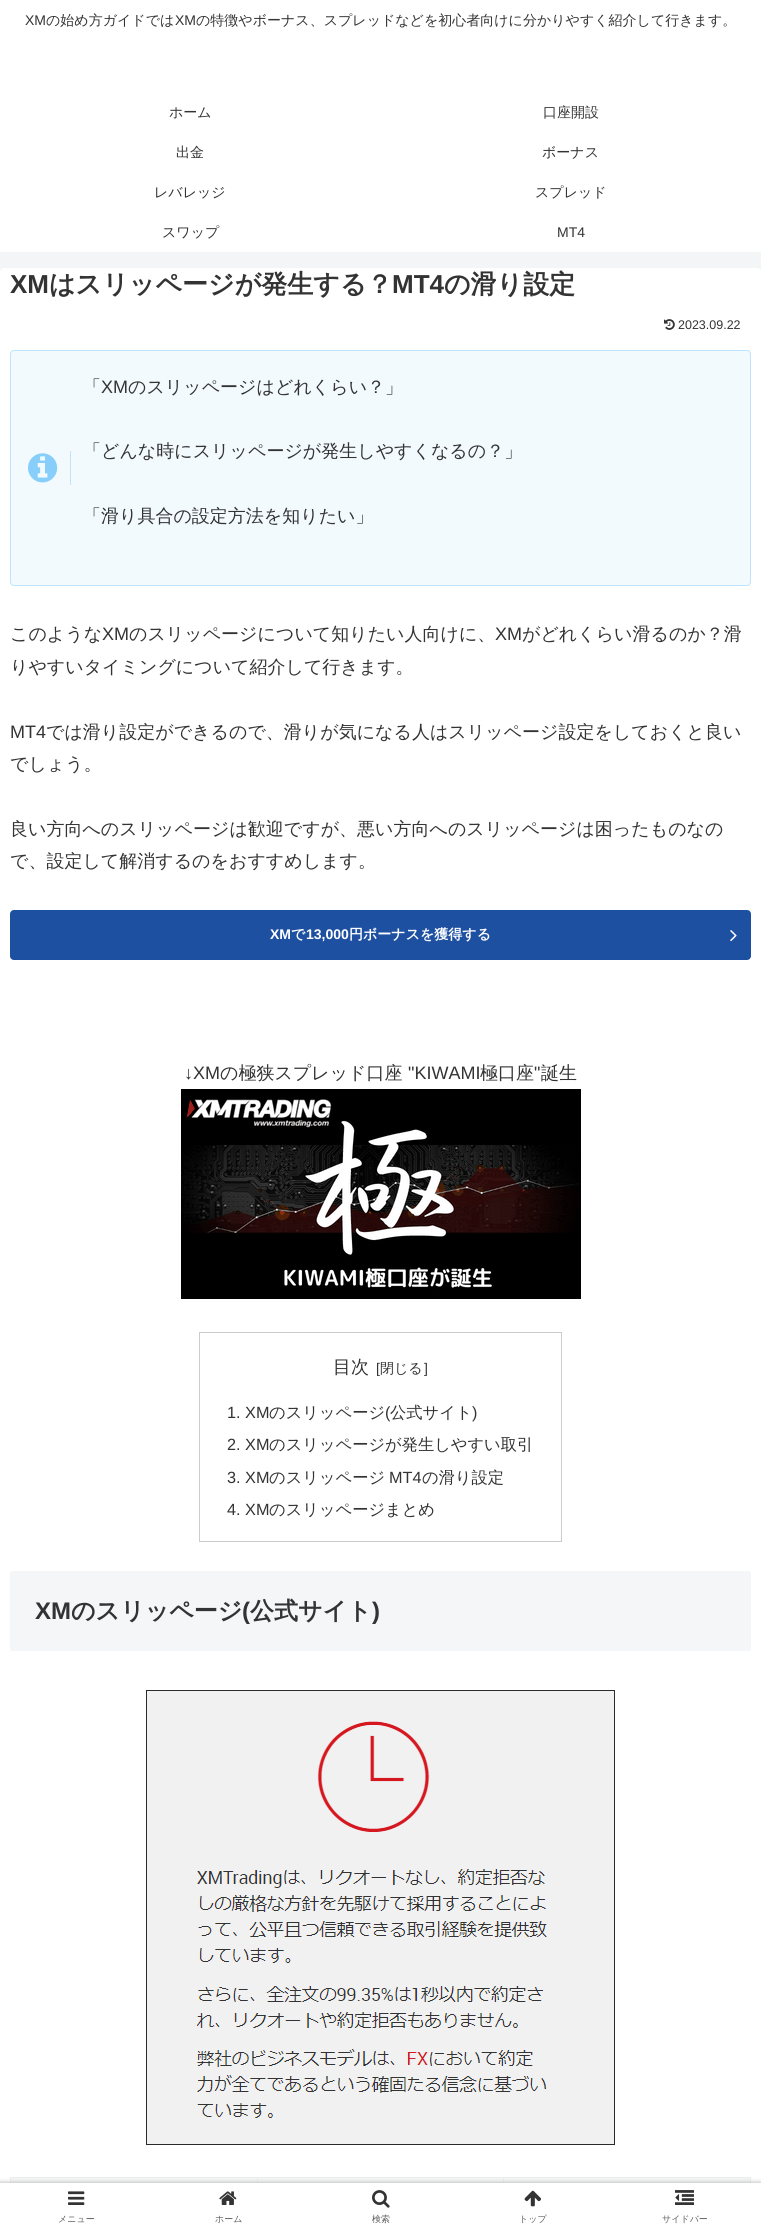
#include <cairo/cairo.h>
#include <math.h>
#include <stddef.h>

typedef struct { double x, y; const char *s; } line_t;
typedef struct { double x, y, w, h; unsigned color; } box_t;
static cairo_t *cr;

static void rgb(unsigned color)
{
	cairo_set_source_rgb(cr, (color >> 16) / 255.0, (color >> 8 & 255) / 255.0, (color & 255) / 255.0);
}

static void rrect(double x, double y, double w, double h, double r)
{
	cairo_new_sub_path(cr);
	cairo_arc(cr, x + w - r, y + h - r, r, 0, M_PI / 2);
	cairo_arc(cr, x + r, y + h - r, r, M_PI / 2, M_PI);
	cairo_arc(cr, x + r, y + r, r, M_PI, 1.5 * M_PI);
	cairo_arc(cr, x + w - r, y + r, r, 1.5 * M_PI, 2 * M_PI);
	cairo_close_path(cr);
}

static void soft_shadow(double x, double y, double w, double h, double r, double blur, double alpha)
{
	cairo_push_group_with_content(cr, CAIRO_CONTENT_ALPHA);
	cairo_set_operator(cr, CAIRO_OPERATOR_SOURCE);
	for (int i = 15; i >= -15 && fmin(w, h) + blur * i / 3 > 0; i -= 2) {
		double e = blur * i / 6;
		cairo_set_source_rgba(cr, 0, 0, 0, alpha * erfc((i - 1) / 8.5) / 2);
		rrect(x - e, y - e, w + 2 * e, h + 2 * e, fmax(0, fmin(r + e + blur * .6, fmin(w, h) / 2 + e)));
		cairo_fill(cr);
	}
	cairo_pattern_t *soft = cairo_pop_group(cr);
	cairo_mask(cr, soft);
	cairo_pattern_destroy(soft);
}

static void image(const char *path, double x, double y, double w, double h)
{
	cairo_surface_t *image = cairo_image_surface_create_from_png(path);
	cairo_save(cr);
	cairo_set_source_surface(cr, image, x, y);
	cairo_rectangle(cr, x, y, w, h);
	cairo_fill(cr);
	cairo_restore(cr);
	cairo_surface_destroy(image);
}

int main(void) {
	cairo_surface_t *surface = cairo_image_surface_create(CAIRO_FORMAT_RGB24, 761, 2233);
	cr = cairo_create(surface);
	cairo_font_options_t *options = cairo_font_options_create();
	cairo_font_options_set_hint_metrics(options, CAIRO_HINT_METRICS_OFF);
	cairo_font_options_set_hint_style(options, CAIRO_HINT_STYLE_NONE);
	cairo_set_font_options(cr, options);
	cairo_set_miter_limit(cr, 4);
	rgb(0xf4f5f7);
	cairo_paint(cr);
	rgb(0xffffff);
	cairo_rectangle(cr, 0, 0, 761, 252);
	cairo_fill(cr);
	rrect(0, 268, 761, 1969, 4);
	cairo_fill(cr);
	image("img/1.png", 664, 319, 11, 11);
	rgb(0xf3fafe);
	rrect(10.5, 350.5, 740, 235, 3.5);
	cairo_fill_preserve(cr);
	rgb(0xbde4fc);
	cairo_set_line_width(cr, 1);
	cairo_stroke(cr);
	cairo_rectangle(cr, 70, 451, 1, 34);
	cairo_fill(cr);
	image("img/2.png", 28, 453, 30, 30);
	rgb(0x1e50a2);
	rrect(10, 910, 741, 50, 4);
	cairo_fill(cr);
	image("img/3.png", 730, 930, 7, 12);
	image("img/4.png", 181, 1089, 400, 210);
	cairo_rectangle(cr, 199.5, 1332.5, 362, 209);
	rgb(0xcccccc);
	cairo_stroke(cr);
	rgb(0xf5f6f7);
	rrect(10, 1571, 741, 80, 2);
	cairo_fill(cr);
	image("img/5.png", 146, 1690, 469, 455);
	{
		static const box_t items[] = {
			{11, 2178, 246, 5, 0xf5f6f7},
			{503, 2177, 248, 1, 0xeeeeee},
			{503, 2177, 1, 6, 0xeeeeee},
			{257, 2177, 247, 1, 0xeeeeee},
			{257, 2177, 1, 6, 0xeeeeee},
			{10, 2177, 248, 1, 0xeeeeee},
			{10, 2177, 1, 6, 0xeeeeee},
			{258, 2178, 245, 5, 0xf5f6f7},
			{504, 2178, 246, 5, 0xf5f6f7},
			{750, 2177, 1, 6, 0xeeeeee},
		};
		for (size_t i = 0; i < sizeof items / sizeof *items; i++) {
			rgb(items[i].color);
			cairo_rectangle(cr, items[i].x, items[i].y, items[i].w, items[i].h);
			cairo_fill(cr);
		}
	}
	rgb(0xa9a9a9);
	soft_shadow(0, 2183, 761, 50, 0, 2.5, 1);
	rgb(0xffffff);
	cairo_rectangle(cr, 0, 2183, 761, 50);
	cairo_fill(cr);
	image("img/6.png", 68, 2191, 17, 14);
	image("img/7.png", 219, 2191, 18, 14);
	image("img/8.png", 372, 2190, 18, 18);
	image("img/9.png", 524, 2190, 17, 17);
	image("img/10.png", 675, 2190, 19, 15);
	cairo_select_font_face(cr, "Liberation Sans", CAIRO_FONT_SLANT_NORMAL, CAIRO_FONT_WEIGHT_NORMAL);
	cairo_set_font_size(cr, 14);
	rgb(0x333333);
	cairo_move_to(cr, 25, 25);
	cairo_show_text(cr, "XM");
	cairo_select_font_face(cr, "WenQuanYi Zen Hei Medium", CAIRO_FONT_SLANT_NORMAL, CAIRO_FONT_WEIGHT_NORMAL);
	cairo_move_to(cr, 46, 25);
	cairo_show_text(cr, "の始め方ガイドでは");
	cairo_select_font_face(cr, "Liberation Sans", CAIRO_FONT_SLANT_NORMAL, CAIRO_FONT_WEIGHT_NORMAL);
	cairo_move_to(cr, 175, 25);
	cairo_show_text(cr, "XM");
	cairo_select_font_face(cr, "WenQuanYi Zen Hei Medium", CAIRO_FONT_SLANT_NORMAL, CAIRO_FONT_WEIGHT_NORMAL);
	{
		static const line_t items[] = {
			{196, 25, "の特徴やボーナス、スプレッドなどを初心者向けに分かりやすく紹介して行きます。"},
			{169, 117, "ホーム"},
			{543, 117, "口座開設"},
			{176, 157, "出金"},
			{542, 157, "ボーナス"},
			{154, 197, "レバレッジ"},
			{535, 197, "スプレッド"},
			{162, 237, "スワップ"},
		};
		for (size_t i = 0; i < sizeof items / sizeof *items; i++) {
			cairo_move_to(cr, items[i].x, items[i].y);
			cairo_show_text(cr, items[i].s);
		}
	}
	cairo_select_font_face(cr, "Liberation Sans", CAIRO_FONT_SLANT_NORMAL, CAIRO_FONT_WEIGHT_NORMAL);
	cairo_move_to(cr, 557, 237);
	cairo_show_text(cr, "MT4");
	cairo_select_font_face(cr, "Liberation Sans", CAIRO_FONT_SLANT_NORMAL, CAIRO_FONT_WEIGHT_BOLD);
	cairo_set_font_size(cr, 26);
	cairo_move_to(cr, 10, 293);
	cairo_show_text(cr, "XM");
	cairo_select_font_face(cr, "WenQuanYi Zen Hei", CAIRO_FONT_SLANT_NORMAL, CAIRO_FONT_WEIGHT_BOLD);
	cairo_move_to(cr, 49, 293);
	cairo_show_text(cr, "はスリッページが発生する？");
	cairo_select_font_face(cr, "Liberation Sans", CAIRO_FONT_SLANT_NORMAL, CAIRO_FONT_WEIGHT_BOLD);
	cairo_move_to(cr, 392, 293);
	cairo_show_text(cr, "MT4");
	cairo_select_font_face(cr, "WenQuanYi Zen Hei", CAIRO_FONT_SLANT_NORMAL, CAIRO_FONT_WEIGHT_BOLD);
	cairo_move_to(cr, 444, 293);
	cairo_show_text(cr, "の滑り設定");
	cairo_select_font_face(cr, "Liberation Sans", CAIRO_FONT_SLANT_NORMAL, CAIRO_FONT_WEIGHT_NORMAL);
	cairo_set_font_size(cr, 12.5);
	cairo_move_to(cr, 678, 329);
	cairo_show_text(cr, "2023.09.22");
	cairo_select_font_face(cr, "WenQuanYi Zen Hei Medium", CAIRO_FONT_SLANT_NORMAL, CAIRO_FONT_WEIGHT_NORMAL);
	cairo_set_font_size(cr, 18);
	cairo_move_to(cr, 83, 393);
	cairo_show_text(cr, "「");
	cairo_select_font_face(cr, "Liberation Sans", CAIRO_FONT_SLANT_NORMAL, CAIRO_FONT_WEIGHT_NORMAL);
	cairo_move_to(cr, 101, 393);
	cairo_show_text(cr, "XM");
	cairo_select_font_face(cr, "WenQuanYi Zen Hei Medium", CAIRO_FONT_SLANT_NORMAL, CAIRO_FONT_WEIGHT_NORMAL);
	{
		static const line_t items[] = {
			{128, 393, "のスリッページはどれくらい？」"},
			{83, 457, "「どんな時にスリッページが発生しやすくなるの？」"},
			{83, 522, "「滑り具合の設定方法を知りたい」"},
			{10, 640, "このような"},
		};
		for (size_t i = 0; i < sizeof items / sizeof *items; i++) {
			cairo_move_to(cr, items[i].x, items[i].y);
			cairo_show_text(cr, items[i].s);
		}
	}
	cairo_select_font_face(cr, "Liberation Sans", CAIRO_FONT_SLANT_NORMAL, CAIRO_FONT_WEIGHT_NORMAL);
	cairo_move_to(cr, 102, 640);
	cairo_show_text(cr, "XM");
	cairo_select_font_face(cr, "WenQuanYi Zen Hei Medium", CAIRO_FONT_SLANT_NORMAL, CAIRO_FONT_WEIGHT_NORMAL);
	cairo_move_to(cr, 129, 640);
	cairo_show_text(cr, "のスリッページについて知りたい人向けに、");
	cairo_select_font_face(cr, "Liberation Sans", CAIRO_FONT_SLANT_NORMAL, CAIRO_FONT_WEIGHT_NORMAL);
	cairo_move_to(cr, 495, 640);
	cairo_show_text(cr, "XM");
	cairo_select_font_face(cr, "WenQuanYi Zen Hei Medium", CAIRO_FONT_SLANT_NORMAL, CAIRO_FONT_WEIGHT_NORMAL);
	cairo_move_to(cr, 522, 640);
	cairo_show_text(cr, "がどれくらい滑るのか？滑");
	cairo_move_to(cr, 10, 673);
	cairo_show_text(cr, "りやすいタイミングについて紹介して行きます。");
	cairo_select_font_face(cr, "Liberation Sans", CAIRO_FONT_SLANT_NORMAL, CAIRO_FONT_WEIGHT_NORMAL);
	cairo_move_to(cr, 10, 738);
	cairo_show_text(cr, "MT4");
	cairo_select_font_face(cr, "WenQuanYi Zen Hei Medium", CAIRO_FONT_SLANT_NORMAL, CAIRO_FONT_WEIGHT_NORMAL);
	{
		static const line_t items[] = {
			{46, 738, "では滑り設定ができるので、滑りが気になる人はスリッページ設定をしておくと良い"},
			{10, 770, "でしょう。"},
			{10, 835, "良い方向へのスリッページは歓迎ですが、悪い方向へのスリッページは困ったものなの"},
			{10, 867, "で、設定して解消するのをおすすめします。"},
		};
		for (size_t i = 0; i < sizeof items / sizeof *items; i++) {
			cairo_move_to(cr, items[i].x, items[i].y);
			cairo_show_text(cr, items[i].s);
		}
	}
	cairo_select_font_face(cr, "Liberation Sans", CAIRO_FONT_SLANT_NORMAL, CAIRO_FONT_WEIGHT_BOLD);
	cairo_set_font_size(cr, 14);
	rgb(0xffffff);
	cairo_move_to(cr, 270, 939);
	cairo_show_text(cr, "XM");
	cairo_select_font_face(cr, "WenQuanYi Zen Hei", CAIRO_FONT_SLANT_NORMAL, CAIRO_FONT_WEIGHT_BOLD);
	cairo_move_to(cr, 291, 939);
	cairo_show_text(cr, "で");
	cairo_select_font_face(cr, "Liberation Sans", CAIRO_FONT_SLANT_NORMAL, CAIRO_FONT_WEIGHT_BOLD);
	cairo_move_to(cr, 306, 939);
	cairo_show_text(cr, "13,000");
	cairo_select_font_face(cr, "WenQuanYi Zen Hei", CAIRO_FONT_SLANT_NORMAL, CAIRO_FONT_WEIGHT_BOLD);
	cairo_move_to(cr, 349, 939);
	cairo_show_text(cr, "円ボーナスを獲得する");
	cairo_select_font_face(cr, "Liberation Sans", CAIRO_FONT_SLANT_NORMAL, CAIRO_FONT_WEIGHT_NORMAL);
	cairo_set_font_size(cr, 18);
	rgb(0x333333);
	cairo_move_to(cr, 184, 1079);
	cairo_show_text(cr, "↓XM");
	cairo_select_font_face(cr, "WenQuanYi Zen Hei Medium", CAIRO_FONT_SLANT_NORMAL, CAIRO_FONT_WEIGHT_NORMAL);
	cairo_move_to(cr, 220, 1079);
	cairo_show_text(cr, "の極狭スプレッド口座");
	cairo_select_font_face(cr, "Liberation Sans", CAIRO_FONT_SLANT_NORMAL, CAIRO_FONT_WEIGHT_NORMAL);
	cairo_move_to(cr, 408, 1079);
	cairo_show_text(cr, "\"KIWAMI");
	cairo_select_font_face(cr, "WenQuanYi Zen Hei Medium", CAIRO_FONT_SLANT_NORMAL, CAIRO_FONT_WEIGHT_NORMAL);
	cairo_move_to(cr, 480, 1079);
	cairo_show_text(cr, "極口座");
	cairo_select_font_face(cr, "Liberation Sans", CAIRO_FONT_SLANT_NORMAL, CAIRO_FONT_WEIGHT_NORMAL);
	cairo_move_to(cr, 534, 1079);
	cairo_show_text(cr, "\"");
	cairo_select_font_face(cr, "WenQuanYi Zen Hei Medium", CAIRO_FONT_SLANT_NORMAL, CAIRO_FONT_WEIGHT_NORMAL);
	cairo_move_to(cr, 541, 1079);
	cairo_show_text(cr, "誕生");
	cairo_move_to(cr, 333, 1373);
	cairo_show_text(cr, "目次");
	cairo_select_font_face(cr, "Liberation Sans", CAIRO_FONT_SLANT_NORMAL, CAIRO_FONT_WEIGHT_NORMAL);
	cairo_set_font_size(cr, 14);
	cairo_move_to(cr, 376, 1373);
	cairo_show_text(cr, "[");
	cairo_select_font_face(cr, "WenQuanYi Zen Hei Medium", CAIRO_FONT_SLANT_NORMAL, CAIRO_FONT_WEIGHT_NORMAL);
	cairo_move_to(cr, 380, 1373);
	cairo_show_text(cr, "閉じる");
	cairo_select_font_face(cr, "Liberation Sans", CAIRO_FONT_SLANT_NORMAL, CAIRO_FONT_WEIGHT_NORMAL);
	cairo_move_to(cr, 424, 1373);
	cairo_show_text(cr, "]");
	cairo_set_font_size(cr, 16.25);
	cairo_move_to(cr, 227, 1418);
	cairo_show_text(cr, "1. XM");
	cairo_select_font_face(cr, "WenQuanYi Zen Hei Medium", CAIRO_FONT_SLANT_NORMAL, CAIRO_FONT_WEIGHT_NORMAL);
	cairo_move_to(cr, 269, 1418);
	cairo_show_text(cr, "のスリッページ");
	cairo_select_font_face(cr, "Liberation Sans", CAIRO_FONT_SLANT_NORMAL, CAIRO_FONT_WEIGHT_NORMAL);
	cairo_move_to(cr, 385, 1418);
	cairo_show_text(cr, "(");
	cairo_select_font_face(cr, "WenQuanYi Zen Hei Medium", CAIRO_FONT_SLANT_NORMAL, CAIRO_FONT_WEIGHT_NORMAL);
	cairo_move_to(cr, 390, 1418);
	cairo_show_text(cr, "公式サイト");
	cairo_select_font_face(cr, "Liberation Sans", CAIRO_FONT_SLANT_NORMAL, CAIRO_FONT_WEIGHT_NORMAL);
	cairo_move_to(cr, 472, 1418);
	cairo_show_text(cr, ")");
	cairo_move_to(cr, 227, 1450);
	cairo_show_text(cr, "2. XM");
	cairo_select_font_face(cr, "WenQuanYi Zen Hei Medium", CAIRO_FONT_SLANT_NORMAL, CAIRO_FONT_WEIGHT_NORMAL);
	cairo_move_to(cr, 269, 1450);
	cairo_show_text(cr, "のスリッページが発生しやすい取引");
	cairo_select_font_face(cr, "Liberation Sans", CAIRO_FONT_SLANT_NORMAL, CAIRO_FONT_WEIGHT_NORMAL);
	cairo_move_to(cr, 227, 1483);
	cairo_show_text(cr, "3. XM");
	cairo_select_font_face(cr, "WenQuanYi Zen Hei Medium", CAIRO_FONT_SLANT_NORMAL, CAIRO_FONT_WEIGHT_NORMAL);
	cairo_move_to(cr, 269, 1483);
	cairo_show_text(cr, "のスリッページ");
	cairo_select_font_face(cr, "Liberation Sans", CAIRO_FONT_SLANT_NORMAL, CAIRO_FONT_WEIGHT_NORMAL);
	cairo_move_to(cr, 389, 1483);
	cairo_show_text(cr, "MT4");
	cairo_select_font_face(cr, "WenQuanYi Zen Hei Medium", CAIRO_FONT_SLANT_NORMAL, CAIRO_FONT_WEIGHT_NORMAL);
	cairo_move_to(cr, 422, 1483);
	cairo_show_text(cr, "の滑り設定");
	cairo_select_font_face(cr, "Liberation Sans", CAIRO_FONT_SLANT_NORMAL, CAIRO_FONT_WEIGHT_NORMAL);
	cairo_move_to(cr, 227, 1515);
	cairo_show_text(cr, "4. XM");
	cairo_select_font_face(cr, "WenQuanYi Zen Hei Medium", CAIRO_FONT_SLANT_NORMAL, CAIRO_FONT_WEIGHT_NORMAL);
	cairo_move_to(cr, 269, 1515);
	cairo_show_text(cr, "のスリッページまとめ");
	cairo_select_font_face(cr, "Liberation Sans", CAIRO_FONT_SLANT_NORMAL, CAIRO_FONT_WEIGHT_BOLD);
	cairo_set_font_size(cr, 24);
	cairo_move_to(cr, 35, 1619);
	cairo_show_text(cr, "XM");
	cairo_select_font_face(cr, "WenQuanYi Zen Hei", CAIRO_FONT_SLANT_NORMAL, CAIRO_FONT_WEIGHT_BOLD);
	cairo_move_to(cr, 71, 1619);
	cairo_show_text(cr, "のスリッページ");
	cairo_select_font_face(cr, "Liberation Sans", CAIRO_FONT_SLANT_NORMAL, CAIRO_FONT_WEIGHT_BOLD);
	cairo_move_to(cr, 242, 1619);
	cairo_show_text(cr, "(");
	cairo_select_font_face(cr, "WenQuanYi Zen Hei", CAIRO_FONT_SLANT_NORMAL, CAIRO_FONT_WEIGHT_BOLD);
	cairo_move_to(cr, 250, 1619);
	cairo_show_text(cr, "公式サイト");
	cairo_select_font_face(cr, "Liberation Sans", CAIRO_FONT_SLANT_NORMAL, CAIRO_FONT_WEIGHT_BOLD);
	cairo_move_to(cr, 372, 1619);
	cairo_show_text(cr, ")");
	cairo_select_font_face(cr, "WenQuanYi Zen Hei Medium", CAIRO_FONT_SLANT_NORMAL, CAIRO_FONT_WEIGHT_NORMAL);
	cairo_set_font_size(cr, 9);
	rgb(0x5c5c5c);
	{
		static const line_t items[] = {
			{58, 2222, "メニュー"},
			{215, 2222, "ホーム"},
			{372, 2222, "検索"},
			{519, 2222, "トップ"},
			{662, 2222, "サイドバー"},
		};
		for (size_t i = 0; i < sizeof items / sizeof *items; i++) {
			cairo_move_to(cr, items[i].x, items[i].y);
			cairo_show_text(cr, items[i].s);
		}
	}
	cairo_surface_write_to_png(surface, "page.png");
	cairo_font_options_destroy(options);
	cairo_destroy(cr);
	cairo_surface_destroy(surface);
	return 0;
}
